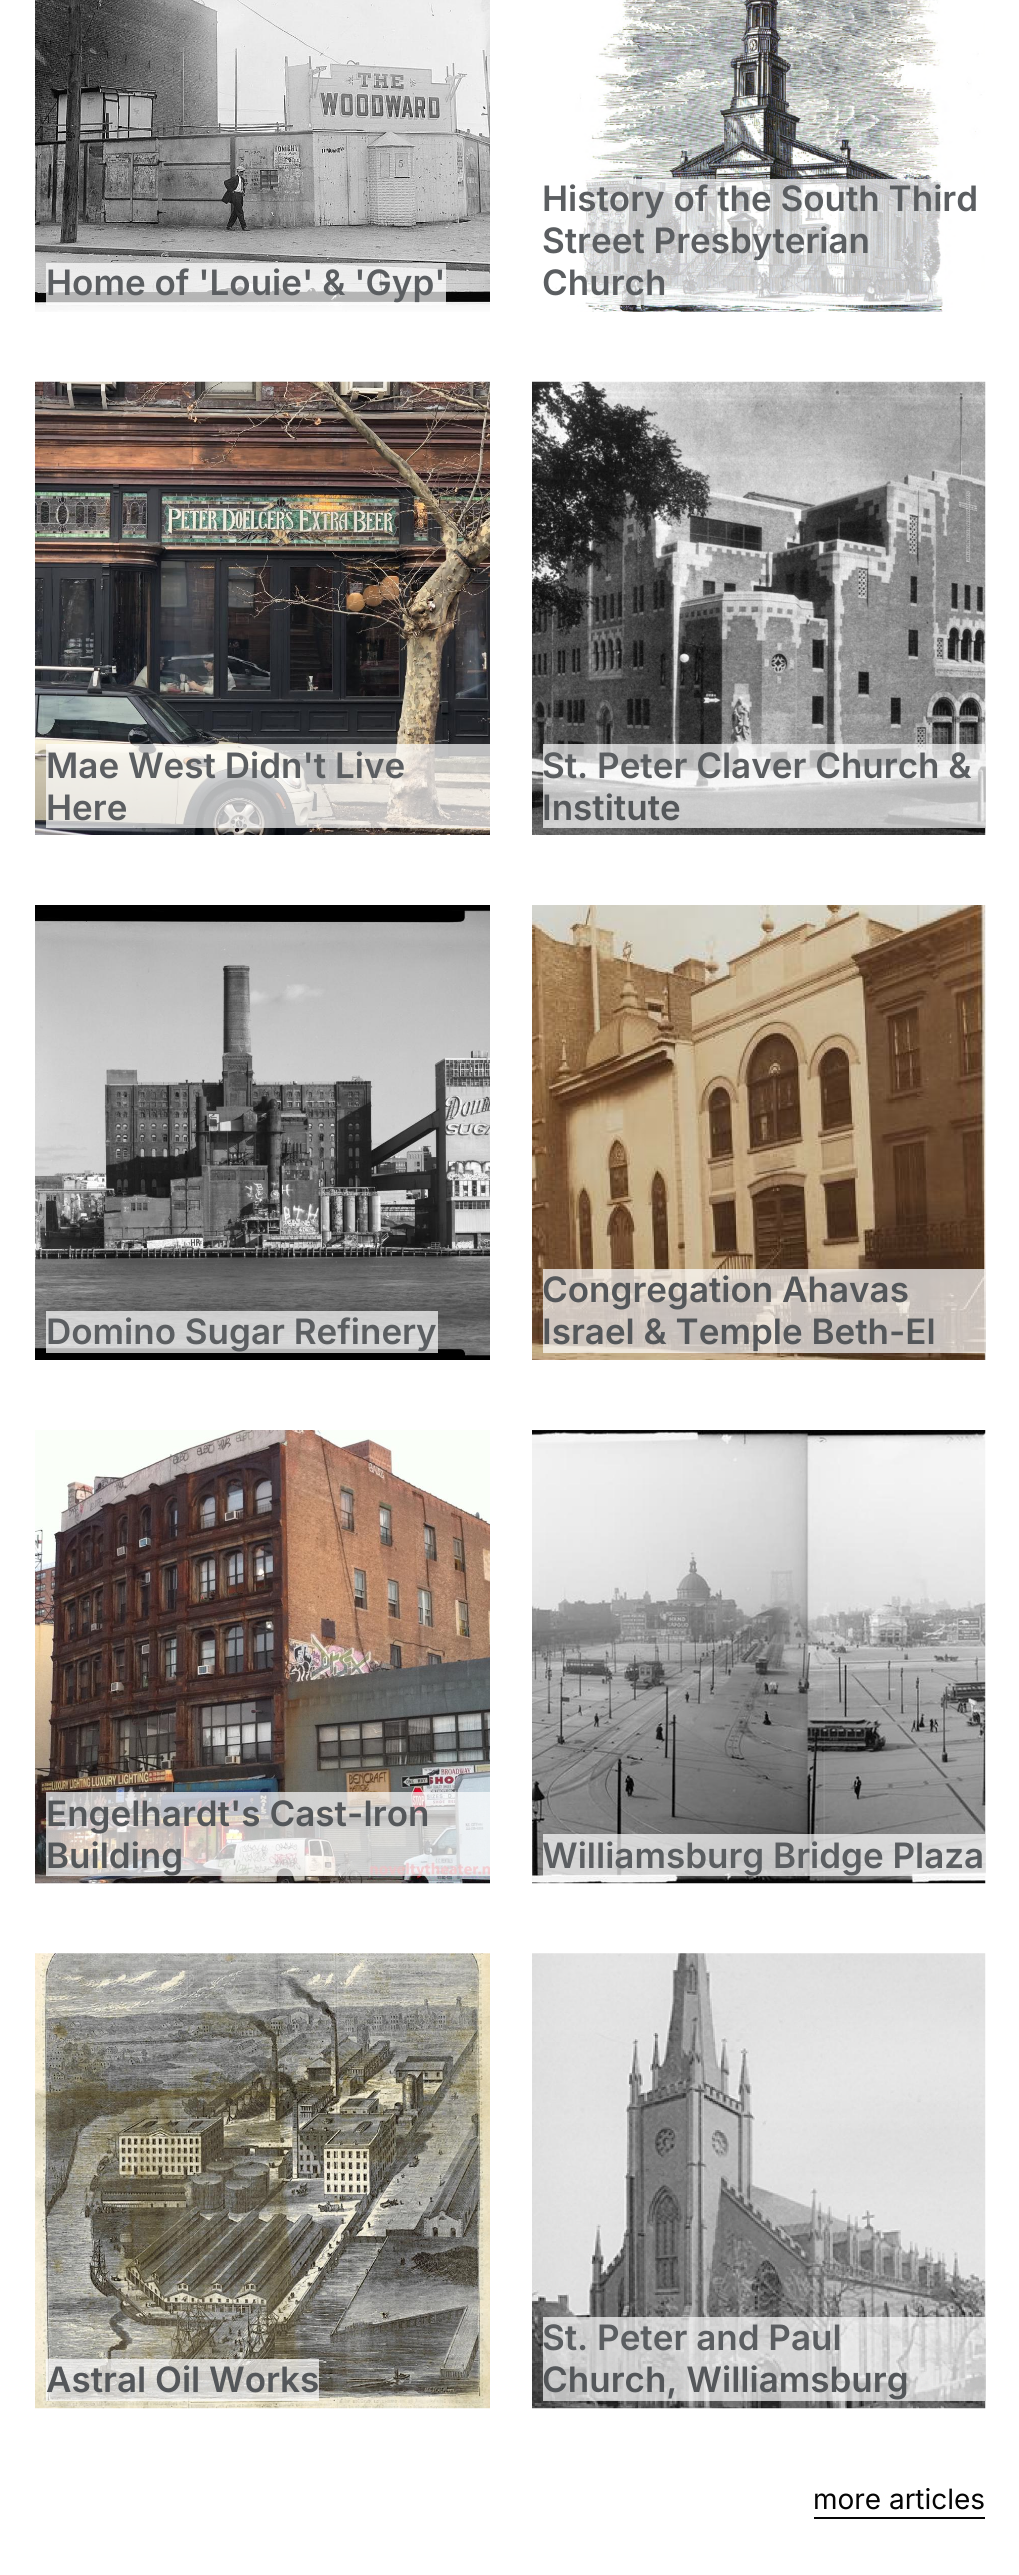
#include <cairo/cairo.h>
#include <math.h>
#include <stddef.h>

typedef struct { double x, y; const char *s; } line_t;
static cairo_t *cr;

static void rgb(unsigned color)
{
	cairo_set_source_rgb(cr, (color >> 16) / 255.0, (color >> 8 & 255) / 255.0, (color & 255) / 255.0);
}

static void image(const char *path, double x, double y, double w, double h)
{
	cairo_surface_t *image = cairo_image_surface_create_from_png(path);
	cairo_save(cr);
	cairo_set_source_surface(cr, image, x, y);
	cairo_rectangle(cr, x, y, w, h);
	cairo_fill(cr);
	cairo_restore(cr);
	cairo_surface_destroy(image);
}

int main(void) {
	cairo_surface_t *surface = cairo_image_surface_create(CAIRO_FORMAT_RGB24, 1019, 2575);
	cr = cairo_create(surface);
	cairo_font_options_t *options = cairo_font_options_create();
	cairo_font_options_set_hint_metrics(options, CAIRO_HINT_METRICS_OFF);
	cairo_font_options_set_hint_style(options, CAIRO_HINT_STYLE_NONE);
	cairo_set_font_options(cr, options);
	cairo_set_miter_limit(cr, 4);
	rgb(0xffffff);
	cairo_paint(cr);
	image("img/1.png", 35, 0, 455, 312);
	cairo_set_source_rgba(cr, 1, 1, 1, 0.7);
	cairo_rectangle(cr, 46, 263, 400, 42);
	cairo_fill(cr);
	image("img/2.png", 532, 0, 453, 312);
	cairo_rectangle(cr, 554, 179, 391, 126);
	cairo_fill(cr);
	image("img/3.png", 35, 381, 455, 454);
	cairo_rectangle(cr, 46, 744, 444, 84);
	cairo_fill(cr);
	image("img/4.png", 532, 381, 454, 454);
	cairo_rectangle(cr, 543, 744, 442, 84);
	cairo_fill(cr);
	image("img/5.png", 35, 905, 455, 455);
	cairo_rectangle(cr, 46, 1311, 392, 42);
	cairo_fill(cr);
	image("img/6.png", 532, 905, 454, 455);
	cairo_rectangle(cr, 543, 1269, 442, 84);
	cairo_fill(cr);
	image("img/7.png", 35, 1430, 455, 454);
	cairo_rectangle(cr, 46, 1792, 444, 84);
	cairo_fill(cr);
	image("img/8.png", 532, 1430, 454, 454);
	cairo_rectangle(cr, 543, 1834, 442, 42);
	cairo_fill(cr);
	image("img/9.png", 35, 1953, 455, 456);
	cairo_rectangle(cr, 46, 2359, 273, 42);
	cairo_fill(cr);
	image("img/10.png", 532, 1953, 454, 456);
	cairo_rectangle(cr, 543, 2317, 442, 84);
	cairo_fill(cr);
	rgb(0x050505);
	cairo_rectangle(cr, 814, 2517, 171, 2);
	cairo_fill(cr);
	cairo_select_font_face(cr, "Inter SemiBold", CAIRO_FONT_SLANT_NORMAL, CAIRO_FONT_WEIGHT_NORMAL);
	cairo_set_font_size(cr, 35);
	rgb(0x5b5e61);
	{
		static const line_t items[] = {
			{46, 295, "Home of 'Louie' & 'Gyp'"},
			{542, 211, "History of the South Third"},
			{542, 253, "Street Presbyterian"},
			{542, 295, "Church"},
			{46, 778, "Mae West Didn't Live"},
			{46, 820, "Here"},
			{542, 778, "St. Peter Claver Church &"},
		};
		for (size_t i = 0; i < sizeof items / sizeof *items; i++) {
			cairo_move_to(cr, items[i].x, items[i].y);
			cairo_show_text(cr, items[i].s);
		}
	}
	rgb(0x54575a);
	cairo_move_to(cr, 542, 820);
	cairo_show_text(cr, "Institute");
	rgb(0x5b5e61);
	cairo_move_to(cr, 46, 1344);
	cairo_show_text(cr, "Domino Sugar Refinery");
	rgb(0x54575a);
	{
		static const line_t items[] = {
			{542, 1302, "Congregation Ahavas"},
			{542, 1344, "Israel & Temple Beth-El"},
			{46, 1826, "Engelhardt's Cast-Iron"},
			{46, 1868, "Building"},
		};
		for (size_t i = 0; i < sizeof items / sizeof *items; i++) {
			cairo_move_to(cr, items[i].x, items[i].y);
			cairo_show_text(cr, items[i].s);
		}
	}
	rgb(0x5b5e61);
	cairo_move_to(cr, 542, 1868);
	cairo_show_text(cr, "Williamsburg Bridge Plaza");
	rgb(0x54575a);
	cairo_move_to(cr, 46, 2392);
	cairo_show_text(cr, "Astral Oil Works");
	rgb(0x5b5e61);
	cairo_move_to(cr, 542, 2350);
	cairo_show_text(cr, "St. Peter and Paul");
	rgb(0x54575a);
	cairo_move_to(cr, 542, 2392);
	cairo_show_text(cr, "Church, Williamsburg");
	cairo_select_font_face(cr, "Inter", CAIRO_FONT_SLANT_NORMAL, CAIRO_FONT_WEIGHT_NORMAL);
	cairo_set_font_size(cr, 28);
	rgb(0x050505);
	cairo_move_to(cr, 813, 2509);
	cairo_show_text(cr, "more articles");
	cairo_surface_write_to_png(surface, "page.png");
	cairo_font_options_destroy(options);
	cairo_destroy(cr);
	cairo_surface_destroy(surface);
	return 0;
}
